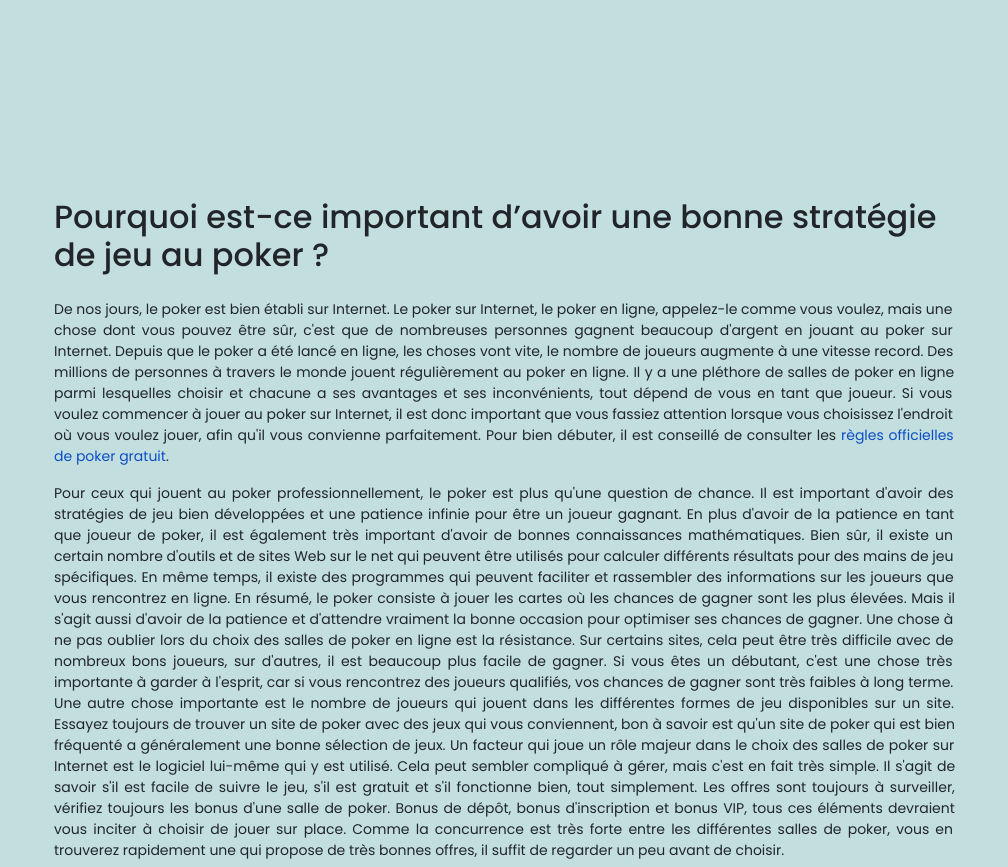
#include <cairo/cairo.h>
#include <math.h>
#include <stddef.h>

static cairo_t *cr;

static void rgb(unsigned color)
{
	cairo_set_source_rgb(cr, (color >> 16) / 255.0, (color >> 8 & 255) / 255.0, (color & 255) / 255.0);
}

static void tracked(double x, double y, const char *s, double letter, double word)
{
	cairo_move_to(cr, x, y);
	while (*s) {
		char ch[5] = {0};
		int n = 0;
		do ch[n++] = *s++; while ((*s & 0xC0) == 0x80);
		cairo_show_text(cr, ch);
		cairo_rel_move_to(cr, letter + word * (*ch == ' '), 0);
	}
}

int main(void) {
	cairo_surface_t *surface = cairo_image_surface_create(CAIRO_FORMAT_RGB24, 1008, 867);
	cr = cairo_create(surface);
	cairo_font_options_t *options = cairo_font_options_create();
	cairo_font_options_set_hint_metrics(options, CAIRO_HINT_METRICS_OFF);
	cairo_font_options_set_hint_style(options, CAIRO_HINT_STYLE_NONE);
	cairo_set_font_options(cr, options);
	cairo_set_miter_limit(cr, 4);
	rgb(0xc2dede);
	cairo_paint(cr);
	cairo_select_font_face(cr, "Poppins Medium", CAIRO_FONT_SLANT_NORMAL, CAIRO_FONT_WEIGHT_NORMAL);
	cairo_set_font_size(cr, 32);
	rgb(0x212529);
	cairo_move_to(cr, 54, 228);
	cairo_show_text(cr, "Pourquoi est-ce important d’avoir une bonne stratégie");
	cairo_move_to(cr, 54, 266);
	cairo_show_text(cr, "de jeu au poker ?");
	cairo_select_font_face(cr, "Poppins", CAIRO_FONT_SLANT_NORMAL, CAIRO_FONT_WEIGHT_NORMAL);
	cairo_set_font_size(cr, 14);
	cairo_move_to(cr, 54, 314);
	cairo_show_text(cr, "De nos jours, le poker est bien établi sur Internet. Le poker sur Internet, le poker en ligne, appelez-le comme vous voulez, mais une");
	tracked(54, 335, "chose dont vous pouvez être sûr, c'est que de nombreuses personnes gagnent beaucoup d'argent en jouant au poker sur", 0, 2.75);
	tracked(54, 356, "Internet. Depuis que le poker a été lancé en ligne, les choses vont vite, le nombre de joueurs augmente à une vitesse record. Des", 0, 0.25);
	tracked(54, 377, "millions de personnes à travers le monde jouent régulièrement au poker en ligne. Il y a une pléthore de salles de poker en ligne", 0, 0.7);
	tracked(54, 398, "parmi lesquelles choisir et chacune a ses avantages et ses inconvénients, tout dépend de vous en tant que joueur. Si vous", 0, 2.25);
	cairo_move_to(cr, 54, 419);
	cairo_show_text(cr, "voulez commencer à jouer au poker sur Internet, il est donc important que vous fassiez attention lorsque vous choisissez l'endroit");
	tracked(54, 440, "où vous voulez jouer, afin qu'il vous convienne parfaitement.", 0, 1);
	tracked(486, 440, "Pour bien débuter, il est conseillé de consulter les", 0, 1);
	rgb(0x0b4dc5);
	tracked(841, 440, "règles officielles", 0, 1);
	cairo_move_to(cr, 54, 461);
	cairo_show_text(cr, "de poker gratuit");
	rgb(0x212529);
	cairo_move_to(cr, 166, 461);
	cairo_show_text(cr, ".");
	tracked(54, 498, "Pour ceux qui jouent au poker professionnellement, le poker est plus qu'une question de chance. Il est important d'avoir des", 0, 2.1);
	tracked(54, 519, "stratégies de jeu bien développées et une patience infinie pour être un joueur gagnant. En plus d'avoir de la patience en tant", 0, 1.4);
	tracked(54, 540, "que joueur de poker, il est également très important d'avoir de bonnes connaissances mathématiques. Bien sûr, il existe un", 0, 2.25);
	cairo_move_to(cr, 54, 561);
	cairo_show_text(cr, "certain nombre d'outils et de sites Web sur le net qui peuvent être utilisés pour calculer différents résultats pour des mains de jeu");
	tracked(54, 582, "spécifiques. En même temps, il existe des programmes qui peuvent faciliter et rassembler des informations sur les joueurs que", 0, 0.9);
	tracked(54, 603, "vous rencontrez en ligne. En résumé, le poker consiste à jouer les cartes où les chances de gagner sont les plus élevées. Mais il", 0, 0.9);
	tracked(54, 624, "s'agit aussi d'avoir de la patience et d'attendre vraiment la bonne occasion pour optimiser ses chances de gagner. Une chose à", 0, 0.3);
	tracked(54, 645, "ne pas oublier lors du choix des salles de poker en ligne est la résistance. Sur certains sites, cela peut être très difficile avec de", 0, 0.9);
	tracked(54, 666, "nombreux bons joueurs, sur d'autres, il est beaucoup plus facile de gagner. Si vous êtes un débutant, c'est une chose très", 0, 2.75);
	tracked(54, 687, "importante à garder à l'esprit, car si vous rencontrez des joueurs qualifiés, vos chances de gagner sont très faibles à long terme.", 0, 0.25);
	tracked(54, 708, "Une autre chose importante est le nombre de joueurs qui jouent dans les différentes formes de jeu disponibles sur un site.", 0, 2.5);
	tracked(54, 729, "Essayez toujours de trouver un site de poker avec des jeux qui vous conviennent, bon à savoir est qu'un site de poker qui est bien", 0, 0.2);
	tracked(54, 750, "fréquenté a généralement une bonne sélection de jeux. Un facteur qui joue un rôle majeur dans le choix des salles de poker sur", 0, 0.6);
	tracked(54, 771, "Internet est le logiciel lui-même qui y est utilisé. Cela peut sembler compliqué à gérer, mais c'est en fait très simple. Il s'agit de", 0, 1);
	tracked(54, 792, "savoir s'il est facile de suivre le jeu, s'il est gratuit et s'il fonctionne bien, tout simplement. Les offres sont toujours à surveiller,", 0, 2);
	tracked(54, 813, "vérifiez toujours les bonus d'une salle de poker. Bonus de dépôt, bonus d'inscription et bonus VIP, tous ces éléments devraient", 0, 1.5);
	tracked(54, 834, "vous inciter à choisir de jouer sur place. Comme la concurrence est très forte entre les différentes salles de poker, vous en", 0, 2.4);
	cairo_move_to(cr, 54, 855);
	cairo_show_text(cr, "trouverez rapidement une qui propose de très bonnes offres, il suffit de regarder un peu avant de choisir.");
	cairo_surface_write_to_png(surface, "page.png");
	cairo_font_options_destroy(options);
	cairo_destroy(cr);
	cairo_surface_destroy(surface);
	return 0;
}
